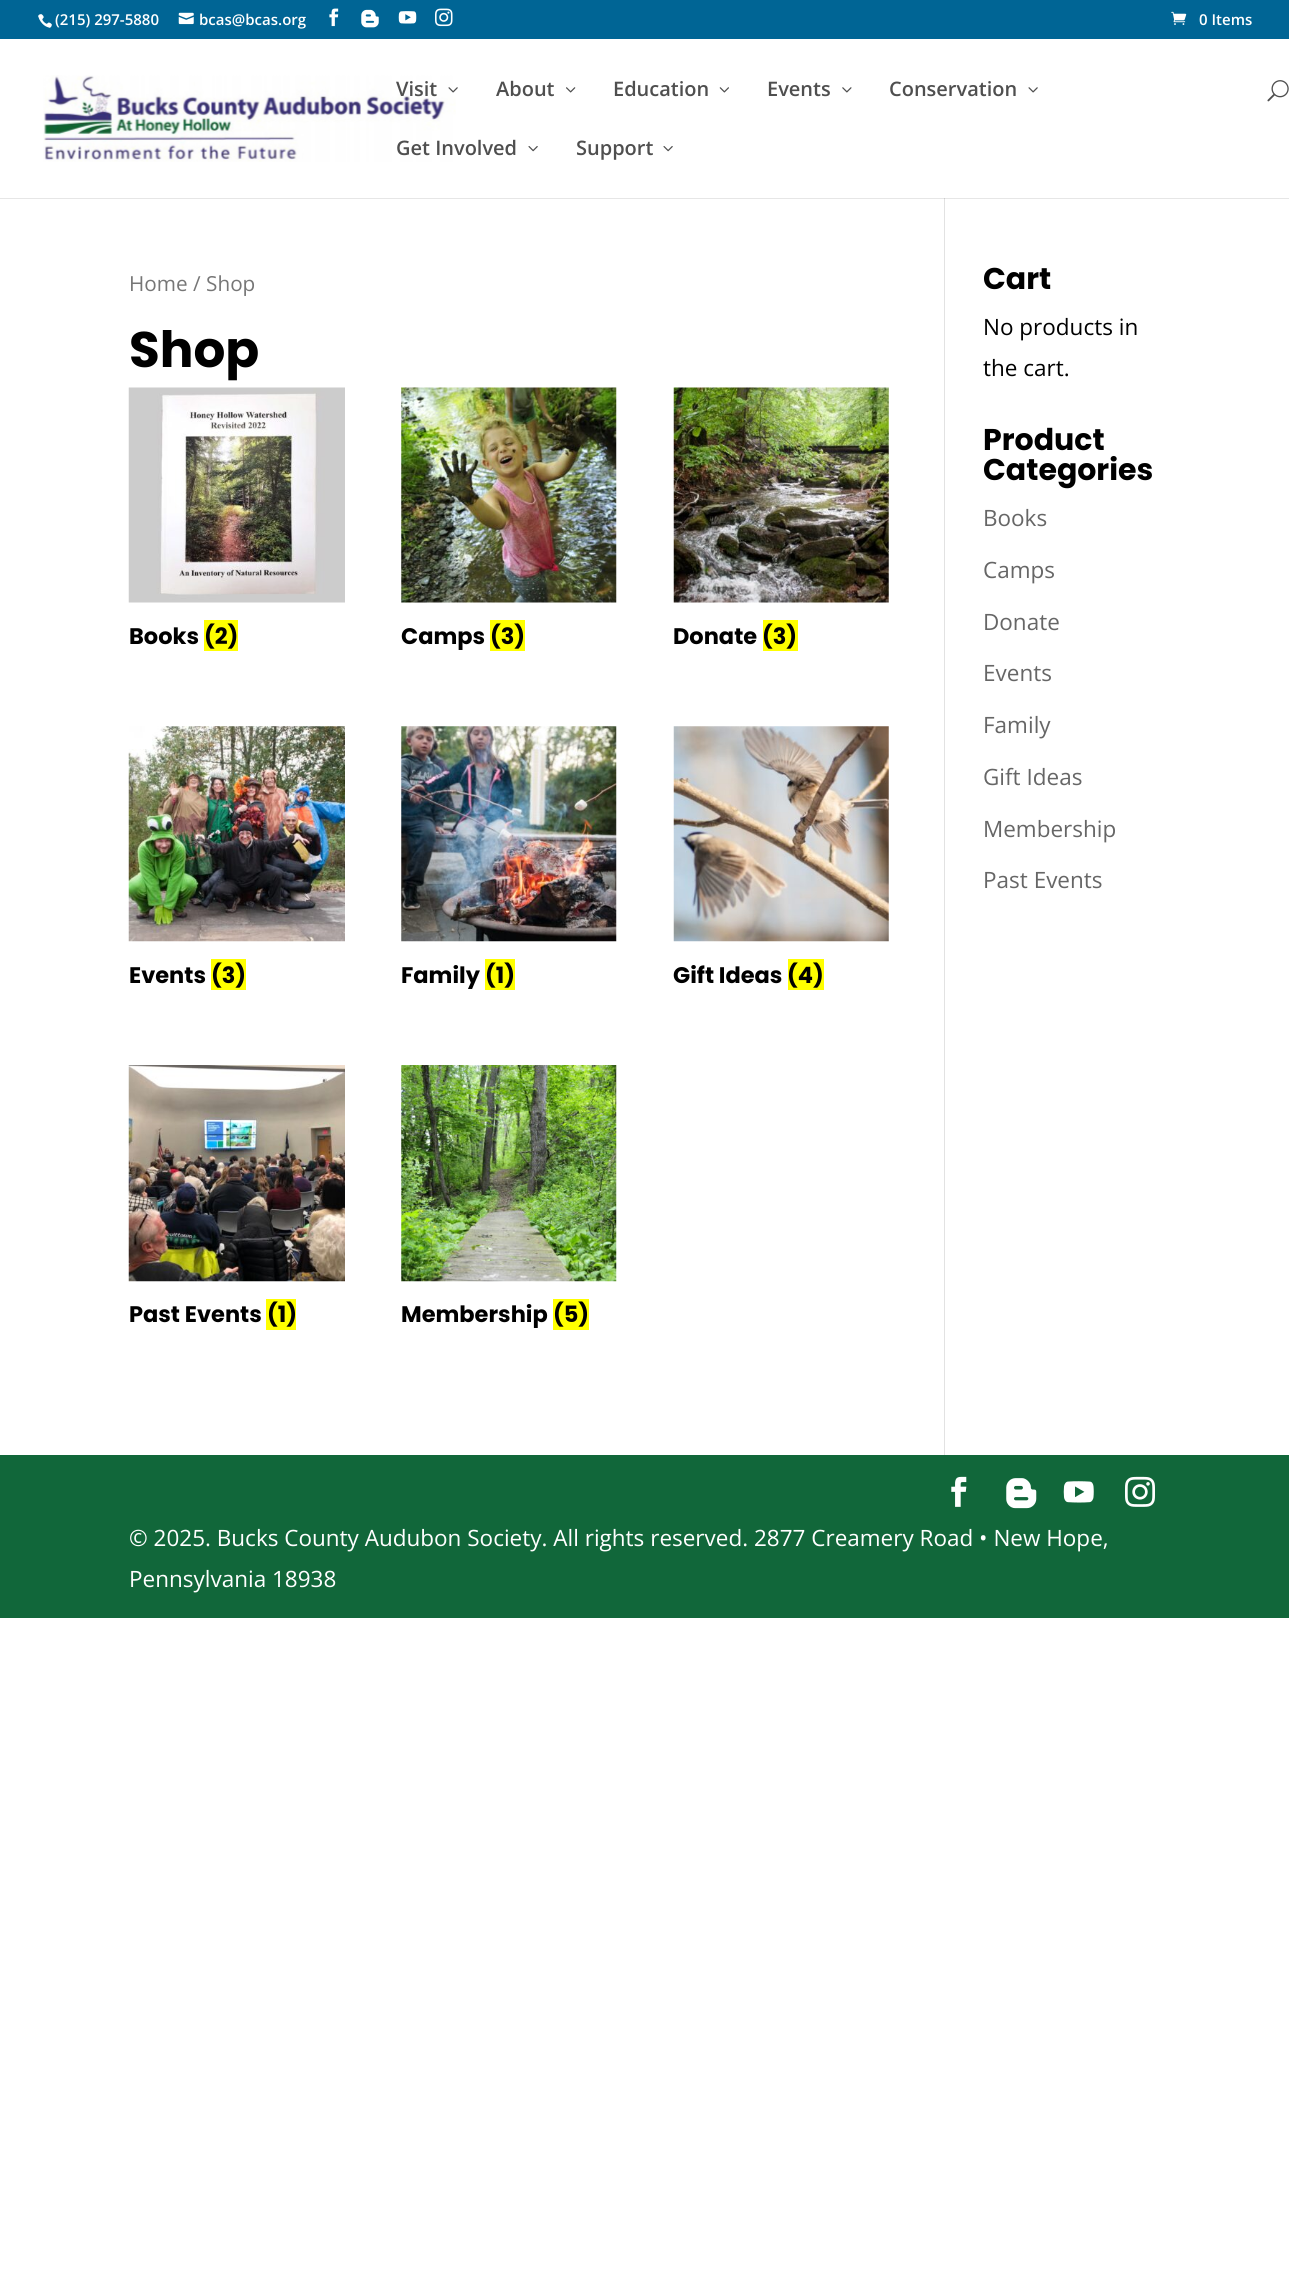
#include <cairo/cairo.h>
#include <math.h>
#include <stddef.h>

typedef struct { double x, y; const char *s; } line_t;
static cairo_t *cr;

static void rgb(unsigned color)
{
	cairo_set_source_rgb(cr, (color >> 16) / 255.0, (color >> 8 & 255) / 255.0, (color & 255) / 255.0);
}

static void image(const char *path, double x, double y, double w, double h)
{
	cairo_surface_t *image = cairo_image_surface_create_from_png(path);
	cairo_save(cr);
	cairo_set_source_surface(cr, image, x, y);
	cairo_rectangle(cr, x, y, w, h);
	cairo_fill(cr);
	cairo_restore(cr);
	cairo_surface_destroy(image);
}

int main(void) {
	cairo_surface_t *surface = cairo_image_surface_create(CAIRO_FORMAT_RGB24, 1289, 2283);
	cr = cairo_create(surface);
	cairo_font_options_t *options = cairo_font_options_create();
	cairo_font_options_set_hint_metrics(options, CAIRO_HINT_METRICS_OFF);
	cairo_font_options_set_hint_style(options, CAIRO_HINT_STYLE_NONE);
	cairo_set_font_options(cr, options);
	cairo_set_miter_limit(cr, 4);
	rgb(0xffffff);
	cairo_paint(cr);
	rgb(0xe6e6e6);
	cairo_rectangle(cr, 0, 198, 1289, 1);
	cairo_fill(cr);
	rgb(0x006595);
	cairo_rectangle(cr, 0, 0, 1289, 39);
	cairo_fill(cr);
	image("img/1.png", 38, 14, 14, 14);
	image("img/2.png", 178, 12, 16, 13);
	image("img/3.png", 329, 8, 10, 19);
	image("img/4.png", 361, 9, 18, 19);
	image("img/5.png", 398, 11, 19, 13);
	image("img/6.png", 435, 8, 18, 19);
	image("img/7.png", 1171, 11, 16, 14);
	rgb(0xe2e2e2);
	cairo_rectangle(cr, 944, 191, 1, 1264);
	cairo_fill(cr);
	rgb(0xffffff);
	cairo_rectangle(cr, 944, 191, 1, 7);
	cairo_fill(cr);
	image("img/8.png", 43, 75, 413, 87);
	image("img/9.png", 448, 87, 10, 6);
	image("img/10.png", 566, 87, 10, 6);
	image("img/11.png", 719, 87, 10, 6);
	image("img/12.png", 842, 87, 10, 6);
	image("img/13.png", 1028, 87, 10, 6);
	image("img/14.png", 528, 146, 10, 6);
	image("img/14.png", 663, 146, 10, 6);
	image("img/15.png", 1267, 80, 22, 22);
	rgb(0xcbcbcb);
	cairo_rectangle(cr, 944, 198, 1, 1);
	cairo_fill(cr);
	image("img/16.png", 128, 387, 217, 216);
	rgb(0xffff00);
	cairo_rectangle(cr, 204, 620, 34, 31);
	cairo_fill(cr);
	image("img/17.png", 401, 387, 216, 216);
	cairo_rectangle(cr, 490, 620, 35, 31);
	cairo_fill(cr);
	image("img/18.png", 673, 387, 216, 216);
	cairo_rectangle(cr, 763, 620, 35, 31);
	cairo_fill(cr);
	image("img/19.png", 128, 726, 217, 216);
	cairo_rectangle(cr, 211, 959, 35, 31);
	cairo_fill(cr);
	image("img/20.png", 401, 726, 216, 216);
	cairo_rectangle(cr, 485, 959, 30, 31);
	cairo_fill(cr);
	image("img/21.png", 673, 726, 216, 216);
	cairo_rectangle(cr, 788, 959, 36, 31);
	cairo_fill(cr);
	image("img/22.png", 128, 1065, 217, 217);
	cairo_rectangle(cr, 266, 1299, 30, 31);
	cairo_fill(cr);
	image("img/23.png", 401, 1065, 216, 217);
	cairo_rectangle(cr, 553, 1299, 36, 31);
	cairo_fill(cr);
	rgb(0x11673a);
	cairo_rectangle(cr, 0, 1455, 1289, 163);
	cairo_fill(cr);
	image("img/24.png", 951, 1476, 16, 31);
	image("img/25.png", 1006, 1478, 31, 31);
	image("img/26.png", 1063, 1481, 31, 22);
	image("img/27.png", 1125, 1476, 30, 31);
	cairo_select_font_face(cr, "Open Sans SemiBold", CAIRO_FONT_SLANT_NORMAL, CAIRO_FONT_WEIGHT_NORMAL);
	cairo_set_font_size(cr, 15);
	rgb(0xffffff);
	{
		static const line_t items[] = {
			{55, 25, "(215) 297-5880"},
			{199, 25, "bcas@bcas.org"},
			{1199, 25, "0 Items"},
		};
		for (size_t i = 0; i < sizeof items / sizeof *items; i++) {
			cairo_move_to(cr, items[i].x, items[i].y);
			cairo_show_text(cr, items[i].s);
		}
	}
	cairo_set_font_size(cr, 20);
	rgb(0x4f4f4f);
	{
		static const line_t items[] = {
			{396, 96, "Visit"},
			{496, 96, "About"},
			{613, 96, "Education"},
			{767, 96, "Events"},
			{889, 96, "Conservation"},
			{396, 155, "Get Involved"},
			{576, 155, "Support"},
		};
		for (size_t i = 0; i < sizeof items / sizeof *items; i++) {
			cairo_move_to(cr, items[i].x, items[i].y);
			cairo_show_text(cr, items[i].s);
		}
	}
	cairo_select_font_face(cr, "Open Sans", CAIRO_FONT_SLANT_NORMAL, CAIRO_FONT_WEIGHT_NORMAL);
	cairo_set_font_size(cr, 20.75);
	rgb(0x767676);
	cairo_move_to(cr, 129, 291);
	cairo_show_text(cr, "Home / Shop");
	cairo_select_font_face(cr, "Poppins", CAIRO_FONT_SLANT_NORMAL, CAIRO_FONT_WEIGHT_BOLD);
	cairo_set_font_size(cr, 50);
	rgb(0x000000);
	cairo_move_to(cr, 129, 367);
	cairo_show_text(cr, "Shop");
	cairo_set_font_size(cr, 22.5);
	{
		static const line_t items[] = {
			{129, 644, "Books"},
			{204, 644, "(2)"},
			{401, 644, "Camps"},
			{490, 644, "(3)"},
			{673, 644, "Donate"},
			{762, 644, "(3)"},
			{129, 983, "Events"},
			{211, 983, "(3)"},
			{401, 983, "Family"},
			{485, 983, "(1)"},
			{673, 983, "Gift Ideas"},
			{787, 983, "(4)"},
			{129, 1322, "Past Events"},
			{267, 1322, "(1)"},
			{401, 1322, "Membership"},
			{553, 1322, "(5)"},
		};
		for (size_t i = 0; i < sizeof items / sizeof *items; i++) {
			cairo_move_to(cr, items[i].x, items[i].y);
			cairo_show_text(cr, items[i].s);
		}
	}
	cairo_set_font_size(cr, 30);
	cairo_move_to(cr, 983, 289);
	cairo_show_text(cr, "Cart");
	cairo_select_font_face(cr, "Open Sans", CAIRO_FONT_SLANT_NORMAL, CAIRO_FONT_WEIGHT_NORMAL);
	cairo_set_font_size(cr, 22.5);
	cairo_move_to(cr, 983, 335);
	cairo_show_text(cr, "No products in");
	cairo_move_to(cr, 983, 376);
	cairo_show_text(cr, "the cart.");
	cairo_select_font_face(cr, "Poppins", CAIRO_FONT_SLANT_NORMAL, CAIRO_FONT_WEIGHT_BOLD);
	cairo_set_font_size(cr, 30);
	cairo_move_to(cr, 983, 450);
	cairo_show_text(cr, "Product");
	cairo_move_to(cr, 983, 480);
	cairo_show_text(cr, "Categories");
	cairo_select_font_face(cr, "Open Sans", CAIRO_FONT_SLANT_NORMAL, CAIRO_FONT_WEIGHT_NORMAL);
	cairo_set_font_size(cr, 22.5);
	rgb(0x666666);
	{
		static const line_t items[] = {
			{983, 526, "Books"},
			{983, 578, "Camps"},
			{983, 630, "Donate"},
			{983, 681, "Events"},
			{983, 733, "Family"},
			{983, 785, "Gift Ideas"},
			{983, 837, "Membership"},
			{983, 888, "Past Events"},
		};
		for (size_t i = 0; i < sizeof items / sizeof *items; i++) {
			cairo_move_to(cr, items[i].x, items[i].y);
			cairo_show_text(cr, items[i].s);
		}
	}
	rgb(0xffffff);
	cairo_move_to(cr, 129, 1546);
	cairo_show_text(cr, "© 2025. Bucks County Audubon Society. All rights reserved. 2877 Creamery Road • New Hope,");
	cairo_move_to(cr, 129, 1587);
	cairo_show_text(cr, "Pennsylvania 18938");
	cairo_surface_write_to_png(surface, "page.png");
	cairo_font_options_destroy(options);
	cairo_destroy(cr);
	cairo_surface_destroy(surface);
	return 0;
}
